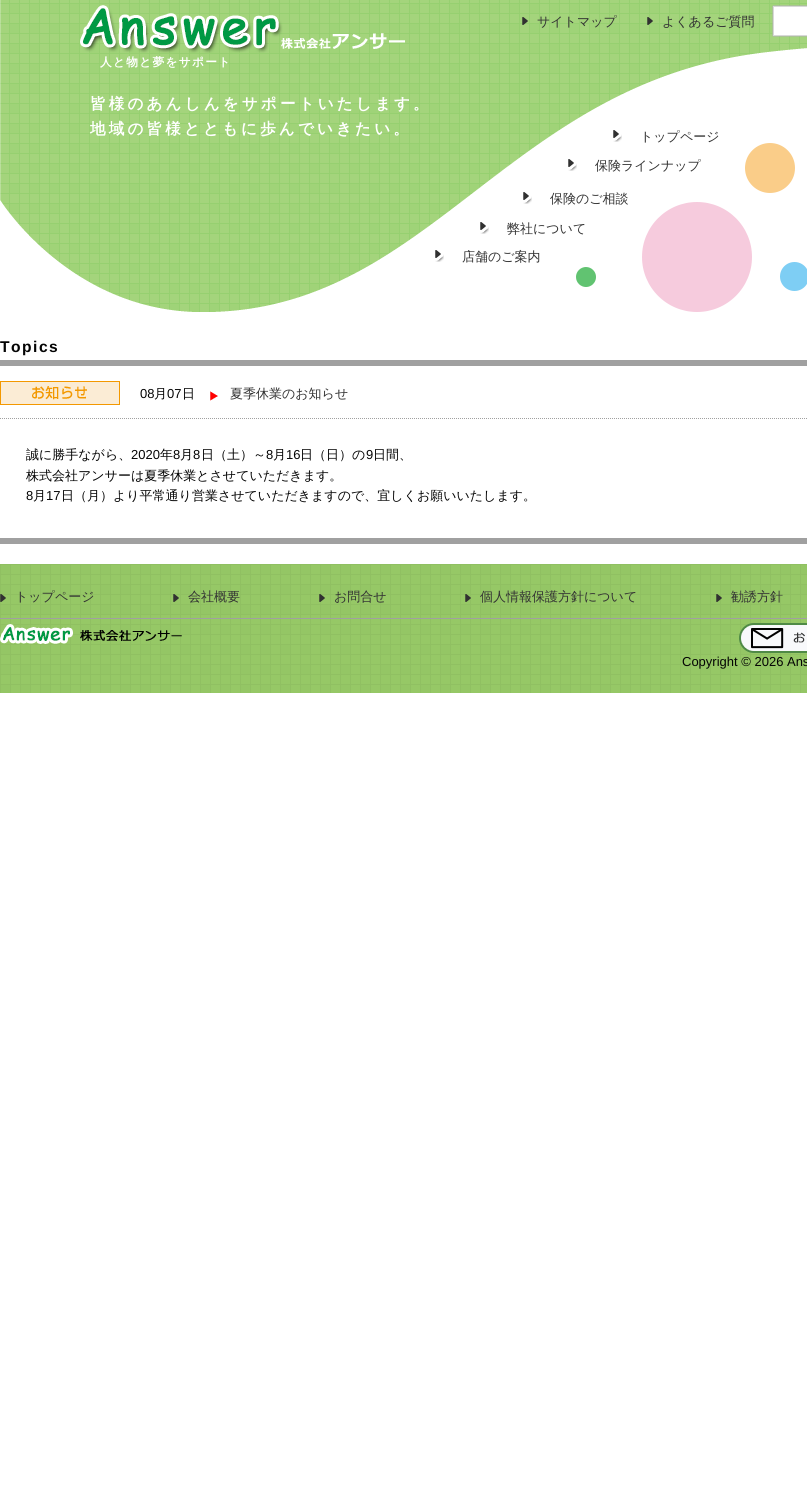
#include <cairo/cairo.h>
#include <math.h>
#include <stddef.h>

typedef struct { double x, y; const char *s; } line_t;
static cairo_t *cr;

static void rgb(unsigned color)
{
	cairo_set_source_rgb(cr, (color >> 16) / 255.0, (color >> 8 & 255) / 255.0, (color & 255) / 255.0);
}

static void tracked(double x, double y, const char *s, double letter, double word)
{
	cairo_move_to(cr, x, y);
	while (*s) {
		char ch[5] = {0};
		int n = 0;
		do ch[n++] = *s++; while ((*s & 0xC0) == 0x80);
		cairo_show_text(cr, ch);
		cairo_rel_move_to(cr, letter + word * (*ch == ' '), 0);
	}
}

static void image(const char *path, double x, double y, double w, double h)
{
	cairo_surface_t *image = cairo_image_surface_create_from_png(path);
	cairo_save(cr);
	cairo_set_source_surface(cr, image, x, y);
	cairo_rectangle(cr, x, y, w, h);
	cairo_fill(cr);
	cairo_restore(cr);
	cairo_surface_destroy(image);
}

int main(void) {
	cairo_surface_t *surface = cairo_image_surface_create(CAIRO_FORMAT_RGB24, 807, 1488);
	cr = cairo_create(surface);
	cairo_font_options_t *options = cairo_font_options_create();
	cairo_font_options_set_hint_metrics(options, CAIRO_HINT_METRICS_OFF);
	cairo_font_options_set_hint_style(options, CAIRO_HINT_STYLE_NONE);
	cairo_set_font_options(cr, options);
	cairo_set_miter_limit(cr, 4);
	rgb(0xffffff);
	cairo_paint(cr);
	image("img/1.png", 0, 0, 807, 312);
	image("img/2.png", 522, 17, 6, 8);
	image("img/3.png", 647, 17, 6, 8);
	image("img/4.png", 772, 5, 35, 32);
	image("img/5.png", 80, 5, 325, 48);
	image("img/6.png", 613, 130, 9, 12);
	image("img/6.png", 568, 159, 9, 12);
	image("img/6.png", 523, 192, 9, 12);
	image("img/6.png", 480, 222, 9, 12);
	image("img/6.png", 435, 250, 9, 12);
	rgb(0xa0a0a0);
	cairo_rectangle(cr, 0, 360, 807, 6);
	cairo_fill(cr);
	cairo_rectangle(cr, 0, 538, 807, 6);
	cairo_fill(cr);
	cairo_new_path(cr);
	cairo_move_to(cr, 0, 418.5);
	cairo_line_to(cr, 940, 418.5);
	cairo_set_line_width(cr, 1);
	cairo_set_dash(cr, (double[]){1, 1}, 2, 0);
	cairo_stroke(cr);
	image("img/7.png", 0, 381, 120, 24);
	image("img/8.png", 210, 391, 8, 10);
	image("img/9.png", 0, 564, 807, 129);
	cairo_rectangle(cr, 0, 618, 807, 1);
	cairo_fill(cr);
	image("img/10.png", 0, 594, 6, 8);
	image("img/11.png", 173, 594, 6, 8);
	image("img/12.png", 319, 594, 6, 8);
	image("img/13.png", 465, 594, 6, 8);
	image("img/14.png", 716, 594, 6, 8);
	image("img/15.png", 739, 623, 68, 30);
	image("img/16.png", 0, 624, 182, 20);
	cairo_select_font_face(cr, "WenQuanYi Zen Hei Medium", CAIRO_FONT_SLANT_NORMAL, CAIRO_FONT_WEIGHT_NORMAL);
	cairo_set_font_size(cr, 13);
	rgb(0x333333);
	cairo_move_to(cr, 537, 26);
	cairo_show_text(cr, "サイトマップ");
	cairo_move_to(cr, 662, 26);
	cairo_show_text(cr, "よくあるご質問");
	cairo_select_font_face(cr, "WenQuanYi Zen Hei", CAIRO_FONT_SLANT_NORMAL, CAIRO_FONT_WEIGHT_BOLD);
	cairo_set_font_size(cr, 11.75);
	rgb(0xffffff);
	tracked(100, 66, "人と物と夢をサポート", 1.25, 0);
	cairo_set_font_size(cr, 15.6);
	tracked(90, 109, "皆様のあんしんをサポートいたします。", 3.1, 0);
	tracked(90, 134, "地域の皆様とともに歩んでいきたい。", 3.1, 0);
	cairo_select_font_face(cr, "WenQuanYi Zen Hei Medium", CAIRO_FONT_SLANT_NORMAL, CAIRO_FONT_WEIGHT_NORMAL);
	cairo_set_font_size(cr, 13);
	rgb(0x333333);
	{
		static const line_t items[] = {
			{640, 141, "トップページ"},
			{595, 170, "保険ラインナップ"},
			{550, 203, "保険のご相談"},
			{507, 233, "弊社について"},
			{462, 261, "店舗のご案内"},
		};
		for (size_t i = 0; i < sizeof items / sizeof *items; i++) {
			cairo_move_to(cr, items[i].x, items[i].y);
			cairo_show_text(cr, items[i].s);
		}
	}
	cairo_select_font_face(cr, "Liberation Sans", CAIRO_FONT_SLANT_NORMAL, CAIRO_FONT_WEIGHT_BOLD);
	cairo_set_font_size(cr, 15.6);
	rgb(0x040404);
	tracked(0, 352, "Topics", 1.5, 0);
	cairo_select_font_face(cr, "Liberation Sans", CAIRO_FONT_SLANT_NORMAL, CAIRO_FONT_WEIGHT_NORMAL);
	cairo_set_font_size(cr, 13);
	cairo_move_to(cr, 140, 398);
	cairo_show_text(cr, "08");
	cairo_select_font_face(cr, "WenQuanYi Zen Hei Medium", CAIRO_FONT_SLANT_NORMAL, CAIRO_FONT_WEIGHT_NORMAL);
	cairo_move_to(cr, 154, 398);
	cairo_show_text(cr, "月");
	cairo_select_font_face(cr, "Liberation Sans", CAIRO_FONT_SLANT_NORMAL, CAIRO_FONT_WEIGHT_NORMAL);
	cairo_move_to(cr, 167, 398);
	cairo_show_text(cr, "07");
	cairo_select_font_face(cr, "WenQuanYi Zen Hei Medium", CAIRO_FONT_SLANT_NORMAL, CAIRO_FONT_WEIGHT_NORMAL);
	cairo_move_to(cr, 182, 398);
	cairo_show_text(cr, "日");
	rgb(0x333333);
	cairo_move_to(cr, 230, 398);
	cairo_show_text(cr, "夏季休業のお知らせ");
	rgb(0x040404);
	cairo_move_to(cr, 26, 459);
	cairo_show_text(cr, "誠に勝手ながら、");
	cairo_select_font_face(cr, "Liberation Sans", CAIRO_FONT_SLANT_NORMAL, CAIRO_FONT_WEIGHT_NORMAL);
	cairo_move_to(cr, 131, 459);
	cairo_show_text(cr, "2020");
	cairo_select_font_face(cr, "WenQuanYi Zen Hei Medium", CAIRO_FONT_SLANT_NORMAL, CAIRO_FONT_WEIGHT_NORMAL);
	cairo_move_to(cr, 160, 459);
	cairo_show_text(cr, "年");
	cairo_select_font_face(cr, "Liberation Sans", CAIRO_FONT_SLANT_NORMAL, CAIRO_FONT_WEIGHT_NORMAL);
	cairo_move_to(cr, 173, 459);
	cairo_show_text(cr, "8");
	cairo_select_font_face(cr, "WenQuanYi Zen Hei Medium", CAIRO_FONT_SLANT_NORMAL, CAIRO_FONT_WEIGHT_NORMAL);
	cairo_move_to(cr, 180, 459);
	cairo_show_text(cr, "月");
	cairo_select_font_face(cr, "Liberation Sans", CAIRO_FONT_SLANT_NORMAL, CAIRO_FONT_WEIGHT_NORMAL);
	cairo_move_to(cr, 193, 459);
	cairo_show_text(cr, "8");
	cairo_select_font_face(cr, "WenQuanYi Zen Hei Medium", CAIRO_FONT_SLANT_NORMAL, CAIRO_FONT_WEIGHT_NORMAL);
	cairo_move_to(cr, 201, 459);
	cairo_show_text(cr, "日（土）～");
	cairo_select_font_face(cr, "Liberation Sans", CAIRO_FONT_SLANT_NORMAL, CAIRO_FONT_WEIGHT_NORMAL);
	cairo_move_to(cr, 266, 459);
	cairo_show_text(cr, "8");
	cairo_select_font_face(cr, "WenQuanYi Zen Hei Medium", CAIRO_FONT_SLANT_NORMAL, CAIRO_FONT_WEIGHT_NORMAL);
	cairo_move_to(cr, 273, 459);
	cairo_show_text(cr, "月");
	cairo_select_font_face(cr, "Liberation Sans", CAIRO_FONT_SLANT_NORMAL, CAIRO_FONT_WEIGHT_NORMAL);
	cairo_move_to(cr, 286, 459);
	cairo_show_text(cr, "16");
	cairo_select_font_face(cr, "WenQuanYi Zen Hei Medium", CAIRO_FONT_SLANT_NORMAL, CAIRO_FONT_WEIGHT_NORMAL);
	cairo_move_to(cr, 300, 459);
	cairo_show_text(cr, "日（日）の");
	cairo_select_font_face(cr, "Liberation Sans", CAIRO_FONT_SLANT_NORMAL, CAIRO_FONT_WEIGHT_NORMAL);
	cairo_move_to(cr, 366, 459);
	cairo_show_text(cr, "9");
	cairo_select_font_face(cr, "WenQuanYi Zen Hei Medium", CAIRO_FONT_SLANT_NORMAL, CAIRO_FONT_WEIGHT_NORMAL);
	cairo_move_to(cr, 373, 459);
	cairo_show_text(cr, "日間、");
	cairo_move_to(cr, 26, 480);
	cairo_show_text(cr, "株式会社アンサーは夏季休業とさせていただきます。");
	cairo_select_font_face(cr, "Liberation Sans", CAIRO_FONT_SLANT_NORMAL, CAIRO_FONT_WEIGHT_NORMAL);
	cairo_move_to(cr, 26, 500);
	cairo_show_text(cr, "8");
	cairo_select_font_face(cr, "WenQuanYi Zen Hei Medium", CAIRO_FONT_SLANT_NORMAL, CAIRO_FONT_WEIGHT_NORMAL);
	cairo_move_to(cr, 33, 500);
	cairo_show_text(cr, "月");
	cairo_select_font_face(cr, "Liberation Sans", CAIRO_FONT_SLANT_NORMAL, CAIRO_FONT_WEIGHT_NORMAL);
	cairo_move_to(cr, 46, 500);
	cairo_show_text(cr, "17");
	cairo_select_font_face(cr, "WenQuanYi Zen Hei Medium", CAIRO_FONT_SLANT_NORMAL, CAIRO_FONT_WEIGHT_NORMAL);
	cairo_move_to(cr, 61, 500);
	cairo_show_text(cr, "日（月）より平常通り営業させていただきますので、宜しくお願いいたします。");
	rgb(0x333333);
	{
		static const line_t items[] = {
			{15, 601, "トップページ"},
			{188, 601, "会社概要"},
			{334, 601, "お問合せ"},
			{480, 601, "個人情報保護方針について"},
			{731, 601, "勧誘方針"},
		};
		for (size_t i = 0; i < sizeof items / sizeof *items; i++) {
			cairo_move_to(cr, items[i].x, items[i].y);
			cairo_show_text(cr, items[i].s);
		}
	}
	cairo_select_font_face(cr, "Liberation Sans", CAIRO_FONT_SLANT_NORMAL, CAIRO_FONT_WEIGHT_NORMAL);
	rgb(0x040404);
	cairo_move_to(cr, 682, 666);
	cairo_show_text(cr, "Copyright © 2026 Ans");
	cairo_surface_write_to_png(surface, "page.png");
	cairo_font_options_destroy(options);
	cairo_destroy(cr);
	cairo_surface_destroy(surface);
	return 0;
}
